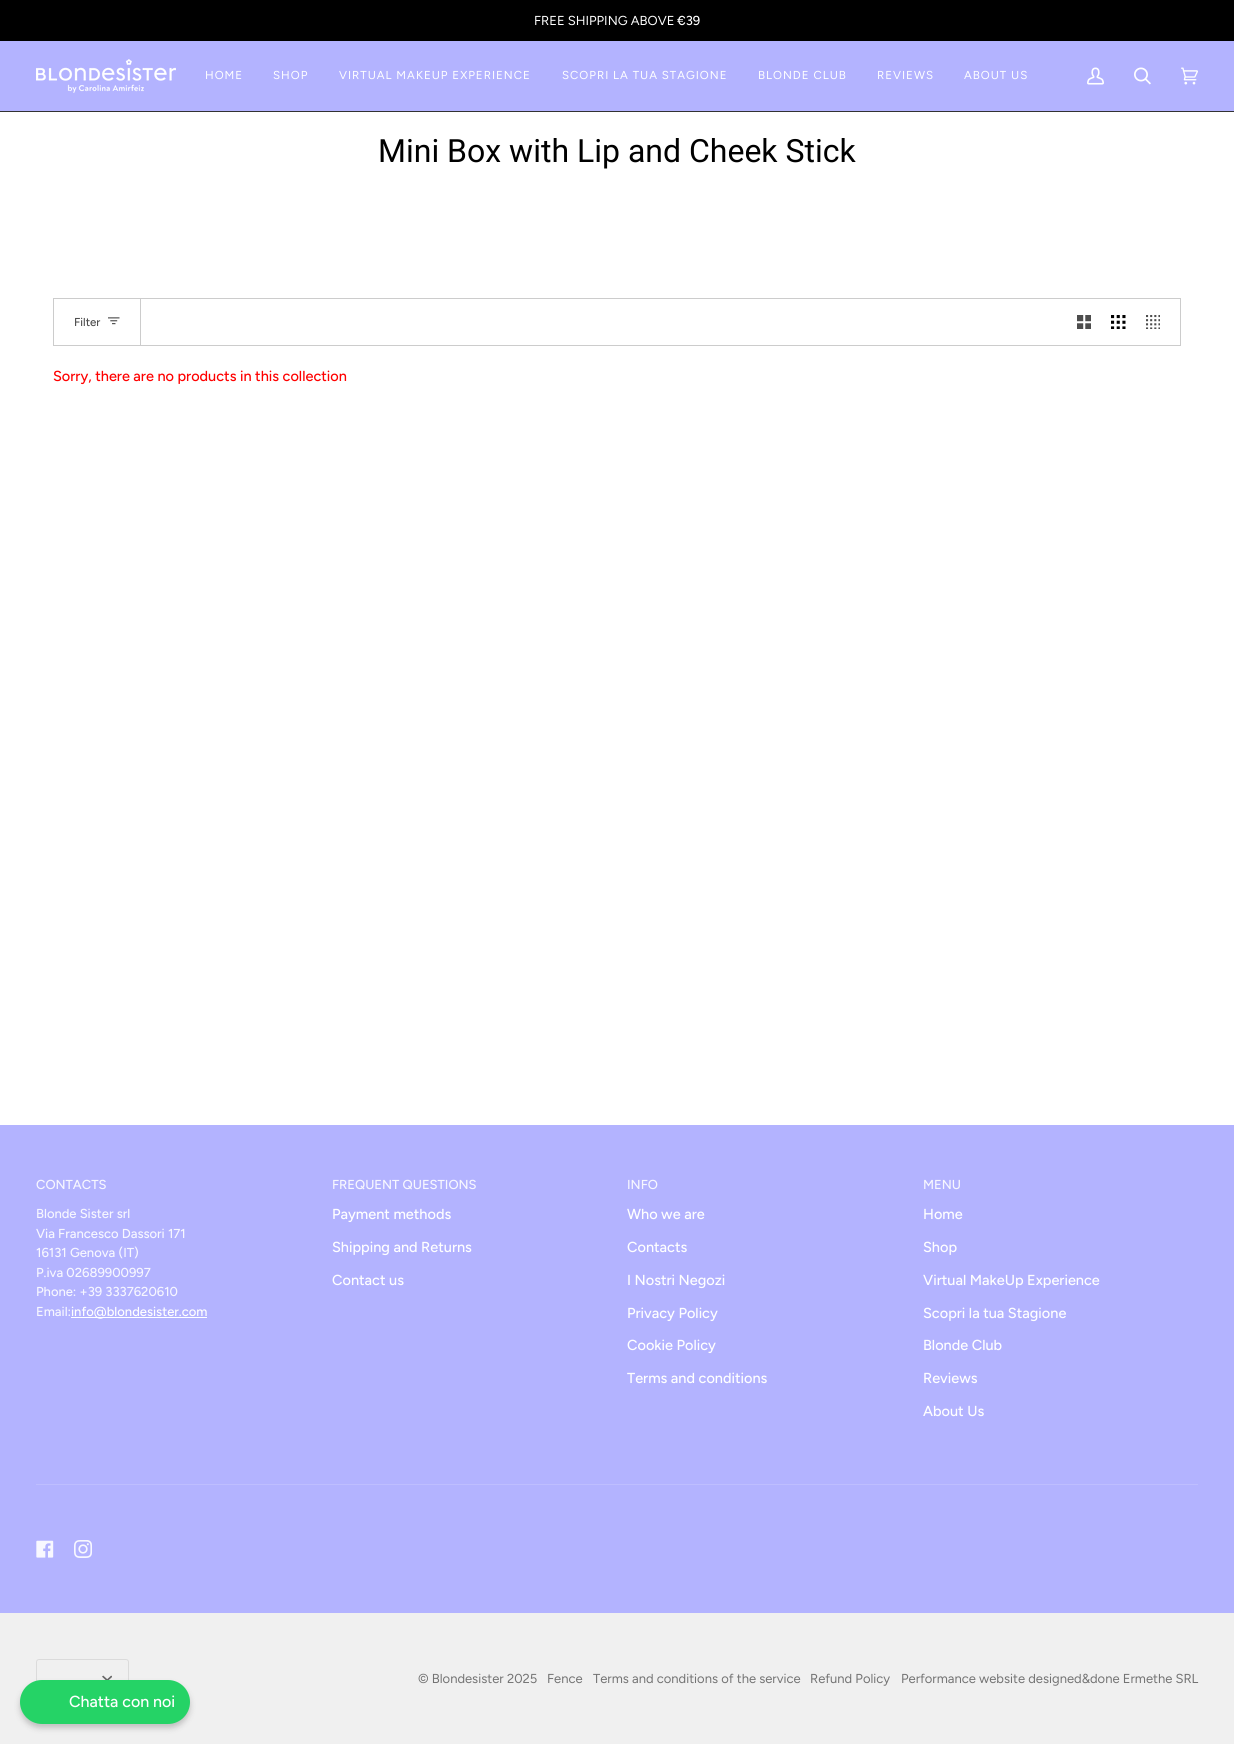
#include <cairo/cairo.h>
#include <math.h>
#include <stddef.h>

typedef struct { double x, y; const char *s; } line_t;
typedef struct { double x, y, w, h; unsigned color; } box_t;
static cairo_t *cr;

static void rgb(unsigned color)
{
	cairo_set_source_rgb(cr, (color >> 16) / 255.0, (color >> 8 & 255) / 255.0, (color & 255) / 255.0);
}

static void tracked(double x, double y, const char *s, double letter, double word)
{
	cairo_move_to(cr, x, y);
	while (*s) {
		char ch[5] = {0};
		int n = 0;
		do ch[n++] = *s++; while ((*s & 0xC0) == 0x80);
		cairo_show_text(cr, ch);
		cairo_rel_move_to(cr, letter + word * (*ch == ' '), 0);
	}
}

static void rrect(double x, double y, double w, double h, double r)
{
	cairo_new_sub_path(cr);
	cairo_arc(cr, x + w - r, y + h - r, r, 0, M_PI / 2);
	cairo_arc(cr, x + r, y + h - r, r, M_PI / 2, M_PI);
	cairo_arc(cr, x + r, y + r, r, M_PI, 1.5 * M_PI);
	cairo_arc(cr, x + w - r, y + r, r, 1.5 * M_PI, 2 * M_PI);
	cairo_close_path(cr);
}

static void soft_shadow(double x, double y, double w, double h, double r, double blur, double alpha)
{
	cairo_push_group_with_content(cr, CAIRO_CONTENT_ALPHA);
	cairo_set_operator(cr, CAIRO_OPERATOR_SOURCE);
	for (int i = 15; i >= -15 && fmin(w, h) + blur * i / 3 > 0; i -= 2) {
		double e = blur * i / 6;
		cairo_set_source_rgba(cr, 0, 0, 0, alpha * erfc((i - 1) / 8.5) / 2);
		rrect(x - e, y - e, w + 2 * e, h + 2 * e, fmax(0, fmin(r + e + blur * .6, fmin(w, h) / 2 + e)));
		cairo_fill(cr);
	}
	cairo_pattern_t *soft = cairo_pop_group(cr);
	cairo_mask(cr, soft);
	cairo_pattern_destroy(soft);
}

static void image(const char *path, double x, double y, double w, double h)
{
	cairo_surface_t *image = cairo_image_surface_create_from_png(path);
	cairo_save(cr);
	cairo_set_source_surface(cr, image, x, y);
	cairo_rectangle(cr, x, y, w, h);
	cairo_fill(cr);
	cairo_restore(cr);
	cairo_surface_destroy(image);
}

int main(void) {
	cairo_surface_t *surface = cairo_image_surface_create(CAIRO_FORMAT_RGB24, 1234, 1744);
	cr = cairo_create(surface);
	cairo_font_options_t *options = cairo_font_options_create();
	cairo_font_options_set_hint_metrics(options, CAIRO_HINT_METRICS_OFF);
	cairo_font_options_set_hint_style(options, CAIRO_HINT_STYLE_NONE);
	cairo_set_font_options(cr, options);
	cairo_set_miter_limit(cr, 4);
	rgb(0xffffff);
	cairo_paint(cr);
	{
		static const box_t items[] = {
			{0, 0, 1234, 41, 0x000000},
			{0, 41, 1234, 70, 0xb3b3ff},
			{0, 111, 1234, 1, 0x333333},
		};
		for (size_t i = 0; i < sizeof items / sizeof *items; i++) {
			rgb(items[i].color);
			cairo_rectangle(cr, items[i].x, items[i].y, items[i].w, items[i].h);
			cairo_fill(cr);
		}
	}
	image("img/1.png", 36, 59, 140, 34);
	image("img/2.png", 1087, 67, 17, 18);
	image("img/3.png", 1134, 67, 17, 18);
	image("img/4.png", 1181, 67, 17, 18);
	cairo_rectangle(cr, 53.5, 298.5, 1127, 47);
	rgb(0xcccccc);
	cairo_set_line_width(cr, 1);
	cairo_stroke(cr);
	cairo_rectangle(cr, 140, 299, 1, 46);
	cairo_fill(cr);
	image("img/5.png", 108, 317, 12, 8);
	image("img/6.png", 1077, 315, 14, 14);
	image("img/7.png", 1111, 315, 15, 14);
	image("img/8.png", 1146, 315, 14, 14);
	{
		static const box_t items[] = {
			{0, 1125, 1234, 488, 0xb3b3ff},
			{71, 1317, 136, 1, 0xffffff},
			{36, 1484, 1162, 1, 0xbebeff},
		};
		for (size_t i = 0; i < sizeof items / sizeof *items; i++) {
			rgb(items[i].color);
			cairo_rectangle(cr, items[i].x, items[i].y, items[i].w, items[i].h);
			cairo_fill(cr);
		}
	}
	image("img/9.png", 36, 1540, 18, 18);
	image("img/10.png", 74, 1540, 18, 18);
	rgb(0xf0f0f0);
	cairo_rectangle(cr, 0, 1613, 1234, 131);
	cairo_fill(cr);
	rrect(36.5, 1659.5, 92, 38, 2.5);
	rgb(0xdbdbdb);
	cairo_stroke(cr);
	image("img/11.png", 102, 1675, 10, 5);
	rgb(0x000000);
	soft_shadow(20, 1684, 170, 44, 22, 3, 0.2);
	rgb(0x25d366);
	rrect(20, 1680, 170, 44, 22);
	cairo_fill(cr);
	cairo_select_font_face(cr, "Figtree", CAIRO_FONT_SLANT_NORMAL, CAIRO_FONT_WEIGHT_NORMAL);
	cairo_set_font_size(cr, 13);
	rgb(0xffffff);
	cairo_move_to(cr, 534, 25);
	cairo_show_text(cr, "FREE SHIPPING ABOVE");
	cairo_select_font_face(cr, "Figtree Medium", CAIRO_FONT_SLANT_NORMAL, CAIRO_FONT_WEIGHT_NORMAL);
	cairo_move_to(cr, 677, 25);
	cairo_show_text(cr, "€39");
	cairo_select_font_face(cr, "Figtree", CAIRO_FONT_SLANT_NORMAL, CAIRO_FONT_WEIGHT_NORMAL);
	cairo_set_font_size(cr, 11.5);
	{
		static const line_t items[] = {
			{205, 79, "HOME"},
			{273, 79, "SHOP"},
			{339, 79, "VIRTUAL MAKEUP EXPERIENCE"},
			{562, 79, "SCOPRI LA TUA STAGIONE"},
			{758, 79, "BLONDE CLUB"},
			{877, 79, "REVIEWS"},
			{964, 79, "ABOUT US"},
		};
		for (size_t i = 0; i < sizeof items / sizeof *items; i++) {
			tracked(items[i].x, items[i].y, items[i].s, 1, 0);
		}
	}
	cairo_select_font_face(cr, "Roboto", CAIRO_FONT_SLANT_NORMAL, CAIRO_FONT_WEIGHT_NORMAL);
	cairo_set_font_size(cr, 32);
	rgb(0x000000);
	cairo_move_to(cr, 378, 162);
	cairo_show_text(cr, "Mini Box with Lip and Cheek Stick");
	cairo_select_font_face(cr, "Figtree Medium", CAIRO_FONT_SLANT_NORMAL, CAIRO_FONT_WEIGHT_NORMAL);
	cairo_set_font_size(cr, 11.5);
	rgb(0x4d4d4d);
	cairo_move_to(cr, 74, 326);
	cairo_show_text(cr, "Filter");
	cairo_set_font_size(cr, 14.5);
	rgb(0xff0000);
	cairo_move_to(cr, 53, 381);
	cairo_show_text(cr, "Sorry, there are no products in this collection");
	cairo_set_font_size(cr, 13);
	rgb(0xf7f7ff);
	{
		static const line_t items[] = {
			{36, 1189, "CONTACTS"},
			{36, 1218, "Blonde Sister srl"},
			{36, 1238, "Via Francesco Dassori 171"},
			{36, 1257, "16131 Genova (IT)"},
			{36, 1277, "P.iva 02689900997"},
			{36, 1296, "Phone: +39 3337620610"},
			{36, 1316, "Email:"},
		};
		for (size_t i = 0; i < sizeof items / sizeof *items; i++) {
			cairo_move_to(cr, items[i].x, items[i].y);
			cairo_show_text(cr, items[i].s);
		}
	}
	rgb(0xffffff);
	cairo_move_to(cr, 71, 1316);
	cairo_show_text(cr, "info@blondesister.com");
	rgb(0xf7f7ff);
	cairo_move_to(cr, 332, 1189);
	cairo_show_text(cr, "FREQUENT QUESTIONS");
	cairo_set_font_size(cr, 14.5);
	rgb(0xffffff);
	{
		static const line_t items[] = {
			{332, 1219, "Payment methods"},
			{332, 1252, "Shipping and Returns"},
			{332, 1285, "Contact us"},
		};
		for (size_t i = 0; i < sizeof items / sizeof *items; i++) {
			cairo_move_to(cr, items[i].x, items[i].y);
			cairo_show_text(cr, items[i].s);
		}
	}
	cairo_set_font_size(cr, 13);
	rgb(0xf7f7ff);
	cairo_move_to(cr, 627, 1189);
	cairo_show_text(cr, "INFO");
	cairo_set_font_size(cr, 14.5);
	rgb(0xffffff);
	{
		static const line_t items[] = {
			{627, 1219, "Who we are"},
			{627, 1252, "Contacts"},
			{627, 1285, "I Nostri Negozi"},
			{627, 1318, "Privacy Policy"},
			{627, 1350, "Cookie Policy"},
			{627, 1383, "Terms and conditions"},
		};
		for (size_t i = 0; i < sizeof items / sizeof *items; i++) {
			cairo_move_to(cr, items[i].x, items[i].y);
			cairo_show_text(cr, items[i].s);
		}
	}
	cairo_set_font_size(cr, 13);
	rgb(0xf7f7ff);
	cairo_move_to(cr, 923, 1189);
	cairo_show_text(cr, "MENU");
	cairo_set_font_size(cr, 14.5);
	rgb(0xffffff);
	{
		static const line_t items[] = {
			{923, 1219, "Home"},
			{923, 1252, "Shop"},
			{923, 1285, "Virtual MakeUp Experience"},
			{923, 1318, "Scopri la tua Stagione"},
			{923, 1350, "Blonde Club"},
			{923, 1383, "Reviews"},
			{923, 1416, "About Us"},
		};
		for (size_t i = 0; i < sizeof items / sizeof *items; i++) {
			cairo_move_to(cr, items[i].x, items[i].y);
			cairo_show_text(cr, items[i].s);
		}
	}
	cairo_select_font_face(cr, "Figtree", CAIRO_FONT_SLANT_NORMAL, CAIRO_FONT_WEIGHT_NORMAL);
	cairo_set_font_size(cr, 13);
	rgb(0x737373);
	{
		static const line_t items[] = {
			{418, 1683, "© Blondesister"},
			{507, 1683, "2025"},
			{547, 1683, "Fence"},
			{593, 1683, "Terms and conditions of the service"},
			{810, 1683, "Refund Policy"},
			{901, 1683, "Performance website designed&done Ermethe SRL"},
		};
		for (size_t i = 0; i < sizeof items / sizeof *items; i++) {
			cairo_move_to(cr, items[i].x, items[i].y);
			cairo_show_text(cr, items[i].s);
		}
	}
	cairo_select_font_face(cr, "Figtree Medium", CAIRO_FONT_SLANT_NORMAL, CAIRO_FONT_WEIGHT_NORMAL);
	cairo_set_font_size(cr, 16);
	rgb(0xffffff);
	cairo_move_to(cr, 69, 1707);
	cairo_show_text(cr, "Chatta con noi");
	cairo_surface_write_to_png(surface, "page.png");
	cairo_font_options_destroy(options);
	cairo_destroy(cr);
	cairo_surface_destroy(surface);
	return 0;
}
